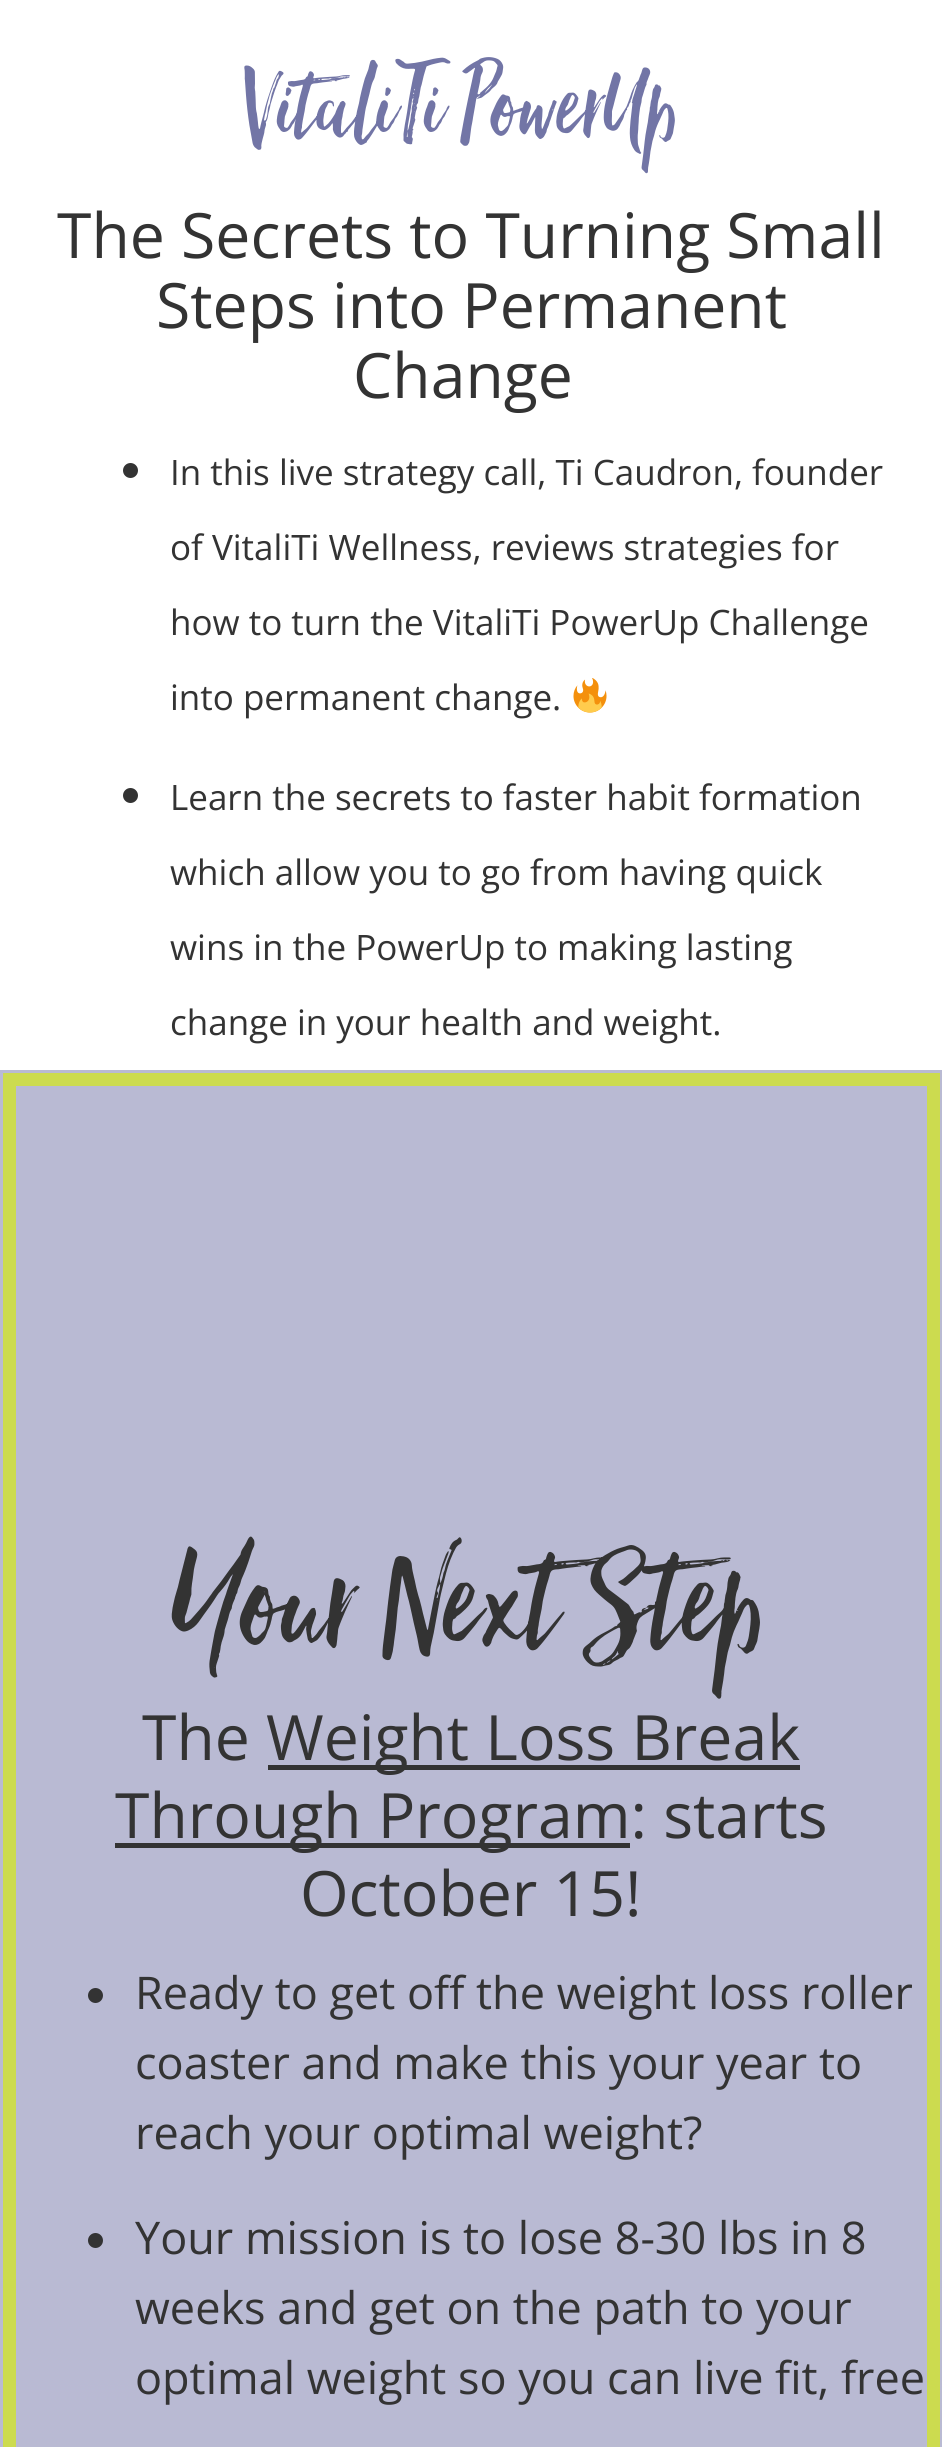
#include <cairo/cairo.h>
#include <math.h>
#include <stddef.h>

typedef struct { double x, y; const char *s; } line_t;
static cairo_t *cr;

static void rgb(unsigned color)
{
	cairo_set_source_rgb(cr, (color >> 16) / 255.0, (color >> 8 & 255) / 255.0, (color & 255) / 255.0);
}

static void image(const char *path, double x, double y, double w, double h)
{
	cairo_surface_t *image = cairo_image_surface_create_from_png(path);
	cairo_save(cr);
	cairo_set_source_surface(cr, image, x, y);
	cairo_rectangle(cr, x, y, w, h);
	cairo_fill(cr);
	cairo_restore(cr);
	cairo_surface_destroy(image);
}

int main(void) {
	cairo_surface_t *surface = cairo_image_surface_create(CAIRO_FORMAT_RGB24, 942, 2447);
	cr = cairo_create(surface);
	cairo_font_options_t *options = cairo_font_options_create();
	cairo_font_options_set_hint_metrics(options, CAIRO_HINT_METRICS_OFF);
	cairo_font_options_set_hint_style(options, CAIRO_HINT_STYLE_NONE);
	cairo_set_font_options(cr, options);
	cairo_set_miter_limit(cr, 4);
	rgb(0xffffff);
	cairo_paint(cr);
	rgb(0x333333);
	cairo_arc(cr, 130.5, 470.5, 7.5, 0, 2 * M_PI);
	cairo_fill(cr);
	image("img/1.png", 573, 678, 34, 35);
	cairo_arc(cr, 130.5, 795.5, 7.5, 0, 2 * M_PI);
	cairo_fill(cr);
	rgb(0xb9bad3);
	cairo_rectangle(cr, 0, 1070, 942, 1377);
	cairo_fill(cr);
	cairo_rectangle(cr, 9.5, 1079.5, 924, 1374);
	rgb(0xccdb4f);
	cairo_set_line_width(cr, 13);
	cairo_stroke(cr);
	rgb(0x333333);
	cairo_rectangle(cr, 268, 1765, 532, 5);
	cairo_fill(cr);
	cairo_rectangle(cr, 115, 1843, 515, 5);
	cairo_fill(cr);
	cairo_arc(cr, 95.5, 1995.5, 7.5, 0, 2 * M_PI);
	cairo_fill(cr);
	cairo_arc(cr, 95.5, 2240.5, 7.5, 0, 2 * M_PI);
	cairo_fill(cr);
	cairo_select_font_face(cr, "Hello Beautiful", CAIRO_FONT_SLANT_NORMAL, CAIRO_FONT_WEIGHT_NORMAL);
	cairo_set_font_size(cr, 125);
	rgb(0x7275a6);
	cairo_move_to(cr, 246, 138);
	cairo_show_text(cr, "VitaliTi PowerUp");
	cairo_select_font_face(cr, "Open Sans", CAIRO_FONT_SLANT_NORMAL, CAIRO_FONT_WEIGHT_NORMAL);
	cairo_set_font_size(cr, 62.5);
	rgb(0x333333);
	{
		static const line_t items[] = {
			{57, 258, "The Secrets to Turning Small"},
			{156, 328, "Steps into Permanent"},
			{353, 398, "Change"},
		};
		for (size_t i = 0; i < sizeof items / sizeof *items; i++) {
			cairo_move_to(cr, items[i].x, items[i].y);
			cairo_show_text(cr, items[i].s);
		}
	}
	cairo_set_font_size(cr, 35);
	{
		static const line_t items[] = {
			{170, 485, "In this live strategy call, Ti Caudron, founder"},
			{170, 560, "of VitaliTi Wellness, reviews strategies for"},
			{170, 635, "how to turn the VitaliTi PowerUp Challenge"},
			{170, 710, "into permanent change."},
			{170, 810, "Learn the secrets to faster habit formation"},
			{170, 885, "which allow you to go from having quick"},
			{170, 960, "wins in the PowerUp to making lasting"},
			{170, 1035, "change in your health and weight."},
		};
		for (size_t i = 0; i < sizeof items / sizeof *items; i++) {
			cairo_move_to(cr, items[i].x, items[i].y);
			cairo_show_text(cr, items[i].s);
		}
	}
	cairo_select_font_face(cr, "Hello Beautiful", CAIRO_FONT_SLANT_NORMAL, CAIRO_FONT_WEIGHT_NORMAL);
	cairo_set_font_size(cr, 180);
	cairo_move_to(cr, 177, 1648);
	cairo_show_text(cr, "Your Next Step");
	cairo_select_font_face(cr, "Open Sans", CAIRO_FONT_SLANT_NORMAL, CAIRO_FONT_WEIGHT_NORMAL);
	cairo_set_font_size(cr, 62.5);
	{
		static const line_t items[] = {
			{142, 1760, "The"},
			{266, 1760, "Weight Loss Break"},
			{115, 1838, "Through Program: starts"},
			{300, 1916, "October 15!"},
		};
		for (size_t i = 0; i < sizeof items / sizeof *items; i++) {
			cairo_move_to(cr, items[i].x, items[i].y);
			cairo_show_text(cr, items[i].s);
		}
	}
	cairo_set_font_size(cr, 45);
	{
		static const line_t items[] = {
			{135, 2009, "Ready to get off the weight loss roller"},
			{135, 2079, "coaster and make this your year to"},
			{135, 2149, "reach your optimal weight?"},
			{135, 2254, "Your mission is to lose 8-30 lbs in 8"},
			{135, 2324, "weeks and get on the path to your"},
			{135, 2394, "optimal weight so you can live fit, free"},
		};
		for (size_t i = 0; i < sizeof items / sizeof *items; i++) {
			cairo_move_to(cr, items[i].x, items[i].y);
			cairo_show_text(cr, items[i].s);
		}
	}
	cairo_surface_write_to_png(surface, "page.png");
	cairo_font_options_destroy(options);
	cairo_destroy(cr);
	cairo_surface_destroy(surface);
	return 0;
}
